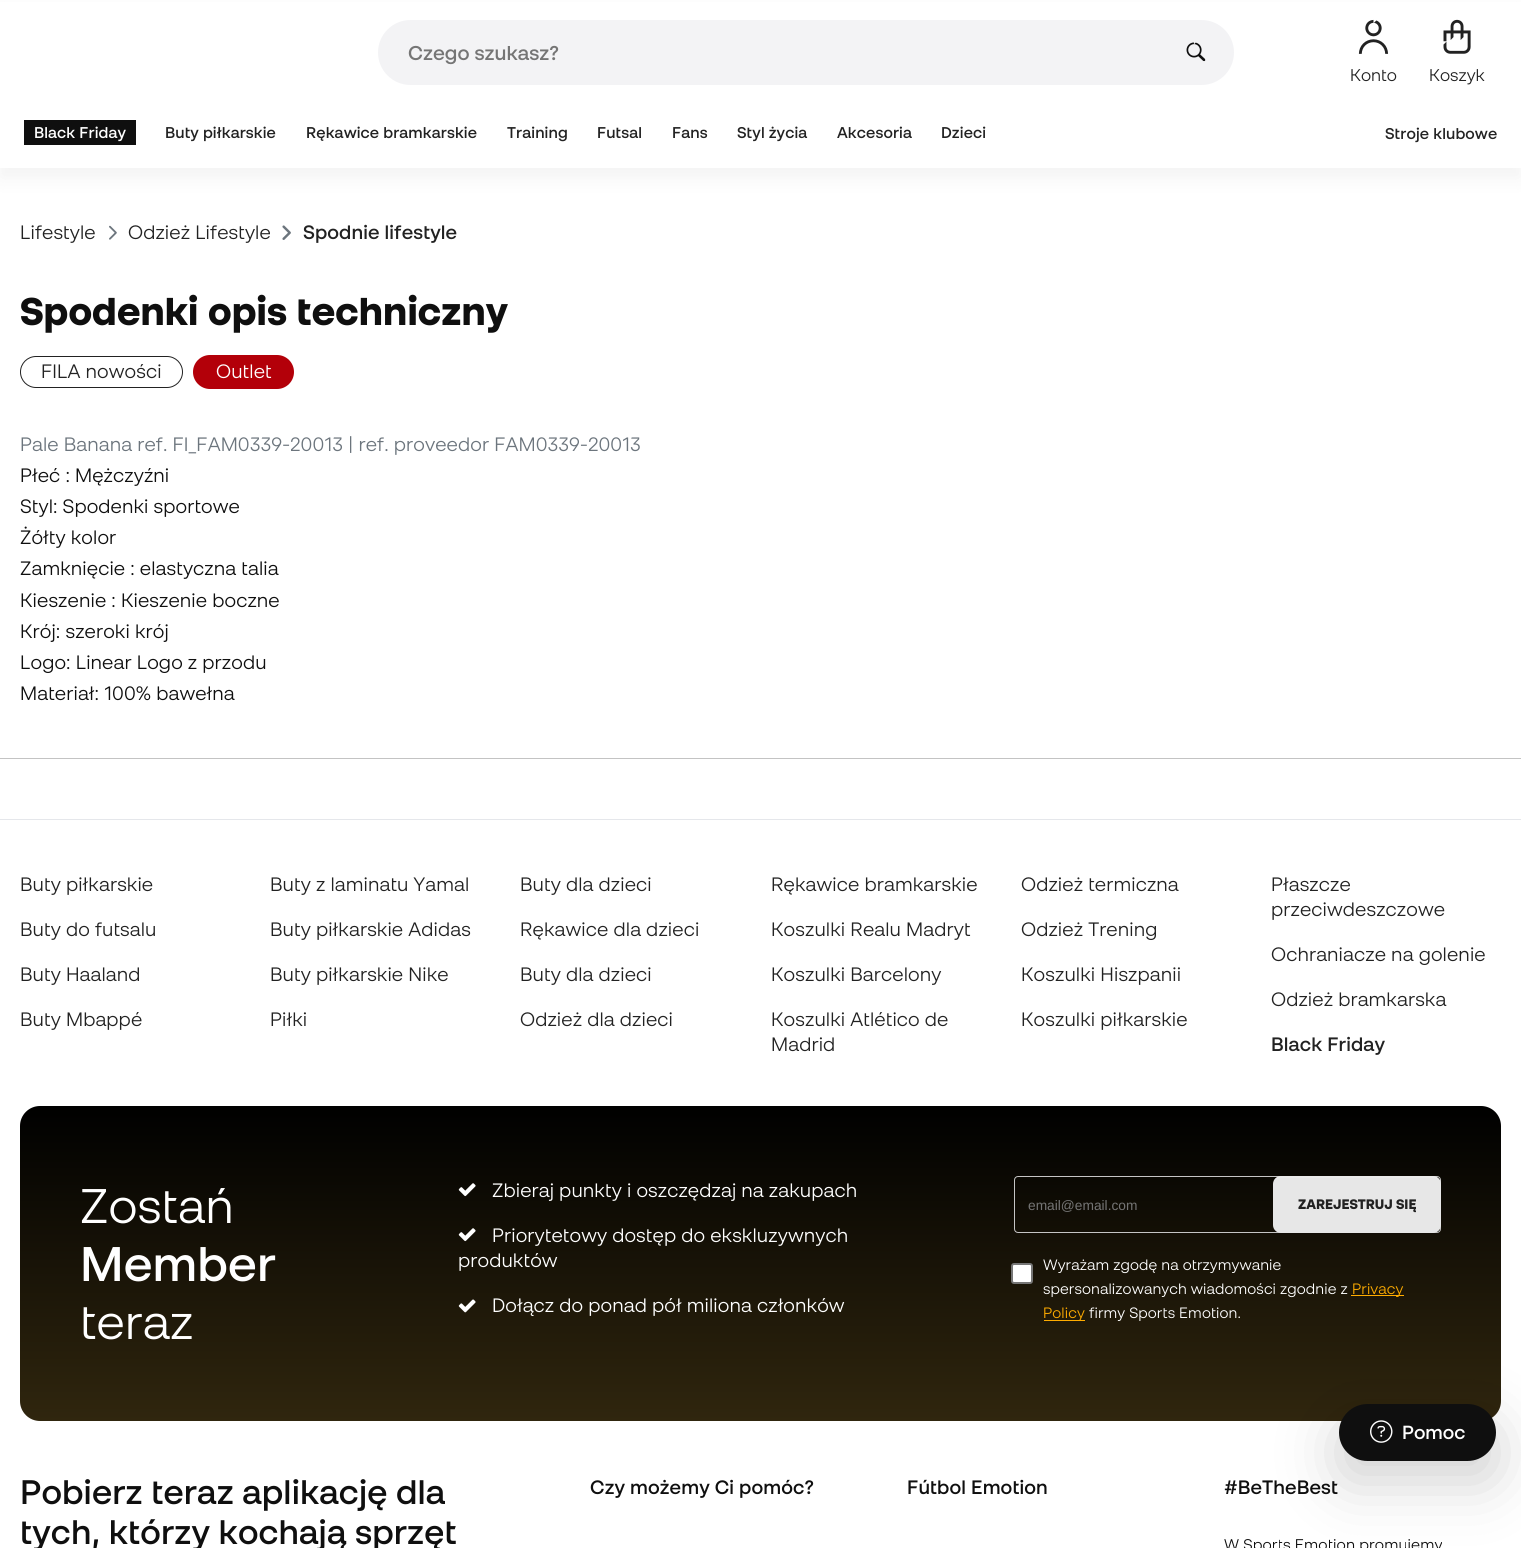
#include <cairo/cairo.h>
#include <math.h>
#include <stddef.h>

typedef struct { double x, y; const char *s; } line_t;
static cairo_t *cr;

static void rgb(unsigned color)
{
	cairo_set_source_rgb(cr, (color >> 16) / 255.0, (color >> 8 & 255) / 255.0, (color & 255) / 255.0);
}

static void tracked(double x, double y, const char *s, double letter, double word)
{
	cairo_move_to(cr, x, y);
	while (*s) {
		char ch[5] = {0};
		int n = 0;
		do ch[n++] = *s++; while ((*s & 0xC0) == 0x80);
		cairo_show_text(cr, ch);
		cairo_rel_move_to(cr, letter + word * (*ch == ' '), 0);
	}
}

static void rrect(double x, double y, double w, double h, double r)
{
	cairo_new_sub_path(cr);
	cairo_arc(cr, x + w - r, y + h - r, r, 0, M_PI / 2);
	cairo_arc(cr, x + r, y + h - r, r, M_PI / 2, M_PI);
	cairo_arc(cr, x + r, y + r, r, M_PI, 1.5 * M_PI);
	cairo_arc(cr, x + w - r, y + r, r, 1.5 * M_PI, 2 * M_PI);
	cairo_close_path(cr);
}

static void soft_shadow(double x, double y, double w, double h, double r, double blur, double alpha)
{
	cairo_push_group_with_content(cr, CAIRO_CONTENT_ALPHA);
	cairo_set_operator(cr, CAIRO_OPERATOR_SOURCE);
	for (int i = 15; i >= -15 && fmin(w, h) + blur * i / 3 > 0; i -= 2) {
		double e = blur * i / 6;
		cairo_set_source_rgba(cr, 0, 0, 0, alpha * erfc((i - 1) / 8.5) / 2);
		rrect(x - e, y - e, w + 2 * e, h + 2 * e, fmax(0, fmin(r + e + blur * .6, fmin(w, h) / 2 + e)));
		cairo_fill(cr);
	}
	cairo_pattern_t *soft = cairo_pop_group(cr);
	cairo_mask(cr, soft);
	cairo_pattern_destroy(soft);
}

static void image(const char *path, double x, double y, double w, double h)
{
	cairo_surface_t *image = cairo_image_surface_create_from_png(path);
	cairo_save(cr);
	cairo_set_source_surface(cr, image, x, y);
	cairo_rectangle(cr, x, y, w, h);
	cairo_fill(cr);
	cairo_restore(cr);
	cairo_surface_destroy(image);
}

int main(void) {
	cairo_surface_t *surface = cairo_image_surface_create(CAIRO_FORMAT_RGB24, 1521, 1548);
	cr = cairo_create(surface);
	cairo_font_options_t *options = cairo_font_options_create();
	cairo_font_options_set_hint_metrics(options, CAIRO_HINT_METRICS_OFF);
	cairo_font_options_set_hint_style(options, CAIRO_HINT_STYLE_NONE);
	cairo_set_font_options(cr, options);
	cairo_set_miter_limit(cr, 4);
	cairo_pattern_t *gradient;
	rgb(0xffffff);
	cairo_paint(cr);
	rgb(0x000000);
	soft_shadow(0, 10, 1521, 168, 0, 10, 0.05);
	rgb(0xffffff);
	cairo_rectangle(cr, 0, 2, 1521, 166);
	cairo_fill(cr);
	rgb(0xf3f3f5);
	rrect(378, 20, 856, 65, 32.5);
	cairo_fill(cr);
	image("img/1.png", 1186, 42, 20, 20);
	image("img/2.png", 1358, 19, 31, 35);
	image("img/3.png", 1443, 19, 28, 35);
	rgb(0x0f0f0f);
	cairo_rectangle(cr, 24, 120, 112, 25);
	cairo_fill(cr);
	image("img/4.png", 109, 225, 8, 15);
	image("img/5.png", 282, 225, 9, 15);
	rrect(20.5, 356.5, 162, 31, 15.5);
	rgb(0x222222);
	cairo_set_line_width(cr, 1);
	cairo_stroke(cr);
	rgb(0xb30009);
	rrect(193, 355, 101, 34, 17);
	cairo_fill(cr);
	rgb(0xc3c3c3);
	cairo_rectangle(cr, 0, 758, 1521, 1);
	cairo_fill(cr);
	gradient = cairo_pattern_create_linear(761, 1106, 761, 1421);
	cairo_pattern_add_color_stop_rgba(gradient, 0, 0, 0, 0, 1);
	cairo_pattern_add_color_stop_rgba(gradient, 1, 0.188, 0.149, 0.055, 1);
	cairo_set_source(cr, gradient);
	cairo_pattern_destroy(gradient);
	rrect(20, 1106, 1481, 315, 20);
	cairo_fill(cr);
	rgb(0x000000);
	soft_shadow(1339, 1424, 157, 57, 28.5, 30, 0.18);
	rgb(0x0f0f0f);
	rrect(1339, 1404, 157, 57, 28.5);
	cairo_fill(cr);
	image("img/6.png", 1370, 1420, 23, 23);
	rgb(0xe5e7eb);
	cairo_rectangle(cr, 0, 819, 1521, 1);
	cairo_fill(cr);
	image("img/7.png", 458, 1183, 18, 14);
	image("img/8.png", 458, 1228, 18, 14);
	image("img/9.png", 458, 1299, 18, 14);
	rrect(1014.5, 1176.5, 426, 56, 3.5);
	rgb(0xc5c5c5);
	cairo_stroke(cr);
	rgb(0x000000);
	soft_shadow(1273, 1178, 168, 56, 8, 0.5, 0.07);
	rgb(0xe7e7e7);
	rrect(1273, 1176, 168, 57, 8);
	cairo_fill(cr);
	cairo_set_source_rgba(cr, 1, 1, 1, 0.15);
	cairo_new_path(cr);
	cairo_move_to(cr, 1280, 1178);
	cairo_line_to(cr, 1434, 1178);
	cairo_curve_to(cr, 1438, 1178, 1441, 1181, 1441, 1185);
	cairo_line_to(cr, 1441, 1184);
	cairo_curve_to(cr, 1441, 1180, 1437, 1176, 1433, 1176);
	cairo_line_to(cr, 1281, 1176);
	cairo_curve_to(cr, 1278, 1176, 1275, 1178, 1274, 1181);
	cairo_curve_to(cr, 1275, 1179, 1278, 1178, 1280, 1178);
	cairo_close_path(cr);
	cairo_fill(cr);
	rgb(0xffffff);
	rrect(1012, 1264, 20, 19, 2);
	cairo_fill_preserve(cr);
	rgb(0x767676);
	cairo_set_line_width(cr, 2);
	cairo_stroke(cr);
	rgb(0xffac00);
	cairo_rectangle(cr, 1351, 1295, 53, 1);
	cairo_fill(cr);
	cairo_rectangle(cr, 1044, 1320, 41, 1);
	cairo_fill(cr);
	cairo_select_font_face(cr, "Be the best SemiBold", CAIRO_FONT_SLANT_NORMAL, CAIRO_FONT_WEIGHT_NORMAL);
	cairo_set_font_size(cr, 20);
	rgb(0x757575);
	cairo_move_to(cr, 408, 60);
	cairo_show_text(cr, "Czego szukasz?");
	cairo_select_font_face(cr, "Be the best", CAIRO_FONT_SLANT_NORMAL, CAIRO_FONT_WEIGHT_NORMAL);
	cairo_set_font_size(cr, 17);
	rgb(0x222222);
	cairo_move_to(cr, 1350, 81);
	cairo_show_text(cr, "Konto");
	cairo_move_to(cr, 1429, 81);
	cairo_show_text(cr, "Koszyk");
	cairo_select_font_face(cr, "Be the best SemiBold", CAIRO_FONT_SLANT_NORMAL, CAIRO_FONT_WEIGHT_NORMAL);
	cairo_set_font_size(cr, 15.6);
	rgb(0xffffff);
	tracked(34, 138, "Black Friday", 0.1, 0);
	rgb(0x222222);
	{
		static const line_t items[] = {
			{165, 138, "Buty piłkarskie"},
			{306, 138, "Rękawice bramkarskie"},
			{507, 138, "Training"},
			{597, 138, "Futsal"},
			{672, 138, "Fans"},
			{737, 138, "Styl życia"},
			{837, 138, "Akcesoria"},
			{941, 138, "Dzieci"},
			{1385, 139, "Stroje klubowe"},
		};
		for (size_t i = 0; i < sizeof items / sizeof *items; i++) {
			tracked(items[i].x, items[i].y, items[i].s, 0.1, 0);
		}
	}
	cairo_select_font_face(cr, "Be the best", CAIRO_FONT_SLANT_NORMAL, CAIRO_FONT_WEIGHT_NORMAL);
	cairo_set_font_size(cr, 19.4);
	tracked(20, 239, "Lifestyle", 0.1, 0);
	tracked(128, 239, "Odzież Lifestyle", 0.1, 0);
	cairo_select_font_face(cr, "Be the best SemiBold", CAIRO_FONT_SLANT_NORMAL, CAIRO_FONT_WEIGHT_NORMAL);
	tracked(303, 239, "Spodnie lifestyle", 0.1, 0);
	cairo_select_font_face(cr, "Be the best", CAIRO_FONT_SLANT_NORMAL, CAIRO_FONT_WEIGHT_BOLD);
	cairo_set_font_size(cr, 38.75);
	rgb(0x0f0f0f);
	tracked(20, 325, "Spodenki opis techniczny", 0.1, 0);
	cairo_select_font_face(cr, "Be the best", CAIRO_FONT_SLANT_NORMAL, CAIRO_FONT_WEIGHT_NORMAL);
	cairo_set_font_size(cr, 19.4);
	rgb(0x222222);
	tracked(41, 378, "FILA nowości", 0.1, 0);
	rgb(0xffffff);
	tracked(216, 378, "Outlet", 0.1, 0);
	rgb(0x6c757d);
	tracked(20, 451, "Pale Banana ref. FI_FAM0339-20013 | ref. proveedor FAM0339-20013", 0.1, 0);
	rgb(0x0f0f0f);
	{
		static const line_t items[] = {
			{20, 482, "Płeć : Mężczyźni"},
			{20, 513, "Styl: Spodenki sportowe"},
			{20, 544, "Żółty kolor"},
			{20, 575, "Zamknięcie : elastyczna talia"},
			{20, 607, "Kieszenie : Kieszenie boczne"},
			{20, 638, "Krój: szeroki krój"},
			{20, 669, "Logo: Linear Logo z przodu"},
			{20, 700, "Materiał: 100% bawełna"},
		};
		for (size_t i = 0; i < sizeof items / sizeof *items; i++) {
			tracked(items[i].x, items[i].y, items[i].s, 0.1, 0);
		}
	}
	cairo_select_font_face(cr, "Be the best SemiBold", CAIRO_FONT_SLANT_NORMAL, CAIRO_FONT_WEIGHT_NORMAL);
	cairo_set_font_size(cr, 19);
	rgb(0xffffff);
	cairo_move_to(cr, 1402, 1439);
	cairo_show_text(cr, "Pomoc");
	cairo_select_font_face(cr, "Be the best", CAIRO_FONT_SLANT_NORMAL, CAIRO_FONT_WEIGHT_NORMAL);
	cairo_set_font_size(cr, 19.4);
	rgb(0x222222);
	{
		static const line_t items[] = {
			{20, 891, "Buty piłkarskie"},
			{270, 891, "Buty z laminatu Yamal"},
			{520, 891, "Buty dla dzieci"},
			{771, 891, "Rękawice bramkarskie"},
			{1021, 891, "Odzież termiczna"},
			{1271, 891, "Płaszcze"},
			{1271, 916, "przeciwdeszczowe"},
			{20, 936, "Buty do futsalu"},
			{270, 936, "Buty piłkarskie Adidas"},
			{520, 936, "Rękawice dla dzieci"},
			{771, 936, "Koszulki Realu Madryt"},
			{1021, 936, "Odzież Trening"},
			{1271, 961, "Ochraniacze na golenie"},
			{20, 981, "Buty Haaland"},
			{270, 981, "Buty piłkarskie Nike"},
			{520, 981, "Buty dla dzieci"},
			{771, 981, "Koszulki Barcelony"},
			{1021, 981, "Koszulki Hiszpanii"},
			{1271, 1006, "Odzież bramkarska"},
			{20, 1026, "Buty Mbappé"},
			{270, 1026, "Piłki"},
			{520, 1026, "Odzież dla dzieci"},
			{771, 1026, "Koszulki Atlético de"},
			{771, 1051, "Madrid"},
			{1021, 1026, "Koszulki piłkarskie"},
		};
		for (size_t i = 0; i < sizeof items / sizeof *items; i++) {
			tracked(items[i].x, items[i].y, items[i].s, 0.1, 0);
		}
	}
	cairo_select_font_face(cr, "Be the best SemiBold", CAIRO_FONT_SLANT_NORMAL, CAIRO_FONT_WEIGHT_NORMAL);
	tracked(1271, 1051, "Black Friday", 0.1, 0);
	cairo_select_font_face(cr, "Be the best", CAIRO_FONT_SLANT_NORMAL, CAIRO_FONT_WEIGHT_NORMAL);
	cairo_set_font_size(cr, 48.5);
	rgb(0xffffff);
	tracked(80, 1223, "Zostań", 0.1, 0);
	cairo_select_font_face(cr, "Be the best SemiBold", CAIRO_FONT_SLANT_NORMAL, CAIRO_FONT_WEIGHT_NORMAL);
	tracked(80, 1281, "Member", 0.1, 0);
	cairo_select_font_face(cr, "Be the best", CAIRO_FONT_SLANT_NORMAL, CAIRO_FONT_WEIGHT_NORMAL);
	tracked(80, 1339, "teraz", 0.1, 0);
	cairo_set_font_size(cr, 19.4);
	{
		static const line_t items[] = {
			{492, 1197, "Zbieraj punkty i oszczędzaj na zakupach"},
			{492, 1242, "Priorytetowy dostęp do ekskluzywnych"},
			{458, 1267, "produktów"},
			{492, 1312, "Dołącz do ponad pół miliona członków"},
		};
		for (size_t i = 0; i < sizeof items / sizeof *items; i++) {
			tracked(items[i].x, items[i].y, items[i].s, 0.1, 0);
		}
	}
	cairo_select_font_face(cr, "Liberation Sans", CAIRO_FONT_SLANT_NORMAL, CAIRO_FONT_WEIGHT_NORMAL);
	cairo_set_font_size(cr, 13.75);
	rgb(0x757575);
	cairo_move_to(cr, 1028, 1210);
	cairo_show_text(cr, "email@email.com");
	cairo_select_font_face(cr, "Be the best", CAIRO_FONT_SLANT_NORMAL, CAIRO_FONT_WEIGHT_BOLD);
	rgb(0x222222);
	cairo_move_to(cr, 1298, 1209);
	cairo_show_text(cr, "ZAREJESTRUJ SIĘ");
	cairo_select_font_face(cr, "Be the best", CAIRO_FONT_SLANT_NORMAL, CAIRO_FONT_WEIGHT_NORMAL);
	cairo_set_font_size(cr, 15);
	rgb(0xffffff);
	tracked(1043, 1270, "Wyrażam zgodę na otrzymywanie", 0.1, 0);
	tracked(1043, 1294, "spersonalizowanych wiadomości zgodnie z", 0.1, 0);
	rgb(0xffac00);
	tracked(1352, 1294, "Privacy", 0.1, 0);
	tracked(1043, 1318, "Policy", 0.1, 0);
	rgb(0xffffff);
	tracked(1089, 1318, "firmy Sports Emotion.", 0.1, 0);
	cairo_select_font_face(cr, "Be the best SemiBold", CAIRO_FONT_SLANT_NORMAL, CAIRO_FONT_WEIGHT_NORMAL);
	cairo_set_font_size(cr, 34);
	rgb(0x0f0f0f);
	tracked(20, 1504, "Pobierz teraz aplikację dla", 0.1, 0);
	tracked(20, 1544, "tych, którzy kochają sprzęt", 0.1, 0);
	cairo_set_font_size(cr, 19.4);
	{
		static const line_t items[] = {
			{590, 1494, "Czy możemy Ci pomóc?"},
			{907, 1494, "Fútbol Emotion"},
			{1224, 1494, "#BeTheBest"},
		};
		for (size_t i = 0; i < sizeof items / sizeof *items; i++) {
			tracked(items[i].x, items[i].y, items[i].s, 0.1, 0);
		}
	}
	cairo_select_font_face(cr, "Be the best", CAIRO_FONT_SLANT_NORMAL, CAIRO_FONT_WEIGHT_NORMAL);
	cairo_set_font_size(cr, 15.5);
	tracked(1224, 1550, "W Sports Emotion promujemy", 0.1, 0);
	cairo_surface_write_to_png(surface, "page.png");
	cairo_font_options_destroy(options);
	cairo_destroy(cr);
	cairo_surface_destroy(surface);
	return 0;
}
